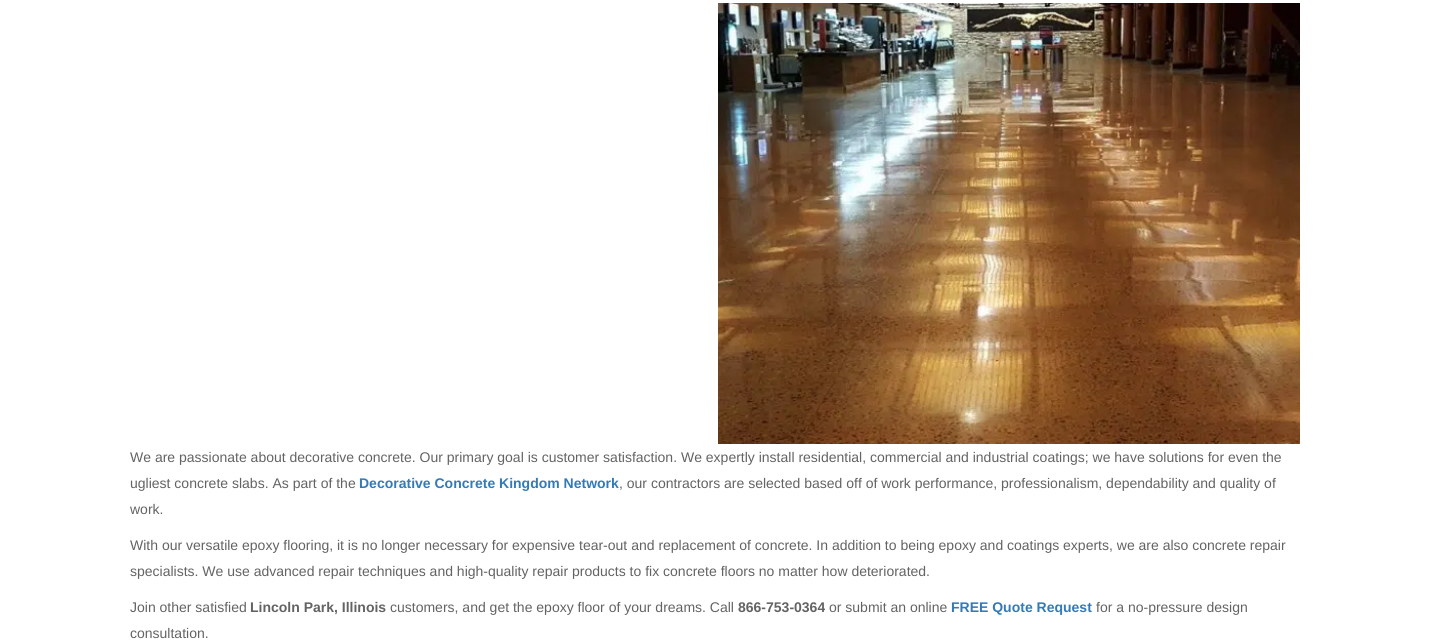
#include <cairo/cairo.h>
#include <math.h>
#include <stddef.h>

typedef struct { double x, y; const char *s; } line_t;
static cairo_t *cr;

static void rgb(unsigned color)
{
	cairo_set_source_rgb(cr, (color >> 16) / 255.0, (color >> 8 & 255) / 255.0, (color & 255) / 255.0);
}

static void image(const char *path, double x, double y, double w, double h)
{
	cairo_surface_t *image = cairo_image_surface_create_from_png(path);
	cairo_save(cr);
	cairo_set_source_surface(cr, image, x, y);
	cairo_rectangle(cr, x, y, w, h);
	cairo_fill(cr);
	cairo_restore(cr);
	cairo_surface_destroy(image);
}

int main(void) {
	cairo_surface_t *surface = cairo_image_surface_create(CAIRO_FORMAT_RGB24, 1429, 644);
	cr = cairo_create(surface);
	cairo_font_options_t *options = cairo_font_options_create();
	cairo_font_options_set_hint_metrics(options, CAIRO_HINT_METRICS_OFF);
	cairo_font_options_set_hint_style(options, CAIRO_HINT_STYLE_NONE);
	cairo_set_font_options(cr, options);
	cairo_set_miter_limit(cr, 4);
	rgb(0xffffff);
	cairo_paint(cr);
	image("img/1.png", 718, 3, 582, 441);
	cairo_select_font_face(cr, "Liberation Sans", CAIRO_FONT_SLANT_NORMAL, CAIRO_FONT_WEIGHT_NORMAL);
	cairo_set_font_size(cr, 14);
	rgb(0x636363);
	cairo_move_to(cr, 130, 462);
	cairo_show_text(cr, "We are passionate about decorative concrete. Our primary goal is customer satisfaction. We expertly install residential, commercial and industrial coatings; we have solutions for even the");
	cairo_move_to(cr, 130, 488);
	cairo_show_text(cr, "ugliest concrete slabs. As part of the");
	cairo_select_font_face(cr, "Liberation Sans", CAIRO_FONT_SLANT_NORMAL, CAIRO_FONT_WEIGHT_BOLD);
	rgb(0x337ab7);
	cairo_move_to(cr, 359, 488);
	cairo_show_text(cr, "Decorative Concrete Kingdom Network");
	cairo_select_font_face(cr, "Liberation Sans", CAIRO_FONT_SLANT_NORMAL, CAIRO_FONT_WEIGHT_NORMAL);
	rgb(0x636363);
	{
		static const line_t items[] = {
			{619, 488, ", our contractors are selected based off of work performance, professionalism, dependability and quality of"},
			{130, 514, "work."},
			{130, 550, "With our versatile epoxy flooring, it is no longer necessary for expensive tear-out and replacement of concrete. In addition to being epoxy and coatings experts, we are also concrete repair"},
			{130, 576, "specialists. We use advanced repair techniques and high-quality repair products to fix concrete floors no matter how deteriorated."},
			{130, 612, "Join other satisfied"},
		};
		for (size_t i = 0; i < sizeof items / sizeof *items; i++) {
			cairo_move_to(cr, items[i].x, items[i].y);
			cairo_show_text(cr, items[i].s);
		}
	}
	cairo_select_font_face(cr, "Liberation Sans", CAIRO_FONT_SLANT_NORMAL, CAIRO_FONT_WEIGHT_BOLD);
	cairo_move_to(cr, 250, 612);
	cairo_show_text(cr, "Lincoln Park, Illinois");
	cairo_select_font_face(cr, "Liberation Sans", CAIRO_FONT_SLANT_NORMAL, CAIRO_FONT_WEIGHT_NORMAL);
	cairo_move_to(cr, 390, 612);
	cairo_show_text(cr, "customers, and get the epoxy floor of your dreams. Call");
	cairo_select_font_face(cr, "Liberation Sans", CAIRO_FONT_SLANT_NORMAL, CAIRO_FONT_WEIGHT_BOLD);
	cairo_move_to(cr, 738, 612);
	cairo_show_text(cr, "866-753-0364");
	cairo_select_font_face(cr, "Liberation Sans", CAIRO_FONT_SLANT_NORMAL, CAIRO_FONT_WEIGHT_NORMAL);
	cairo_move_to(cr, 829, 612);
	cairo_show_text(cr, "or submit an online");
	cairo_select_font_face(cr, "Liberation Sans", CAIRO_FONT_SLANT_NORMAL, CAIRO_FONT_WEIGHT_BOLD);
	rgb(0x337ab7);
	cairo_move_to(cr, 951, 612);
	cairo_show_text(cr, "FREE Quote Request");
	cairo_select_font_face(cr, "Liberation Sans", CAIRO_FONT_SLANT_NORMAL, CAIRO_FONT_WEIGHT_NORMAL);
	rgb(0x636363);
	cairo_move_to(cr, 1096, 612);
	cairo_show_text(cr, "for a no-pressure design");
	cairo_move_to(cr, 130, 638);
	cairo_show_text(cr, "consultation.");
	cairo_surface_write_to_png(surface, "page.png");
	cairo_font_options_destroy(options);
	cairo_destroy(cr);
	cairo_surface_destroy(surface);
	return 0;
}
